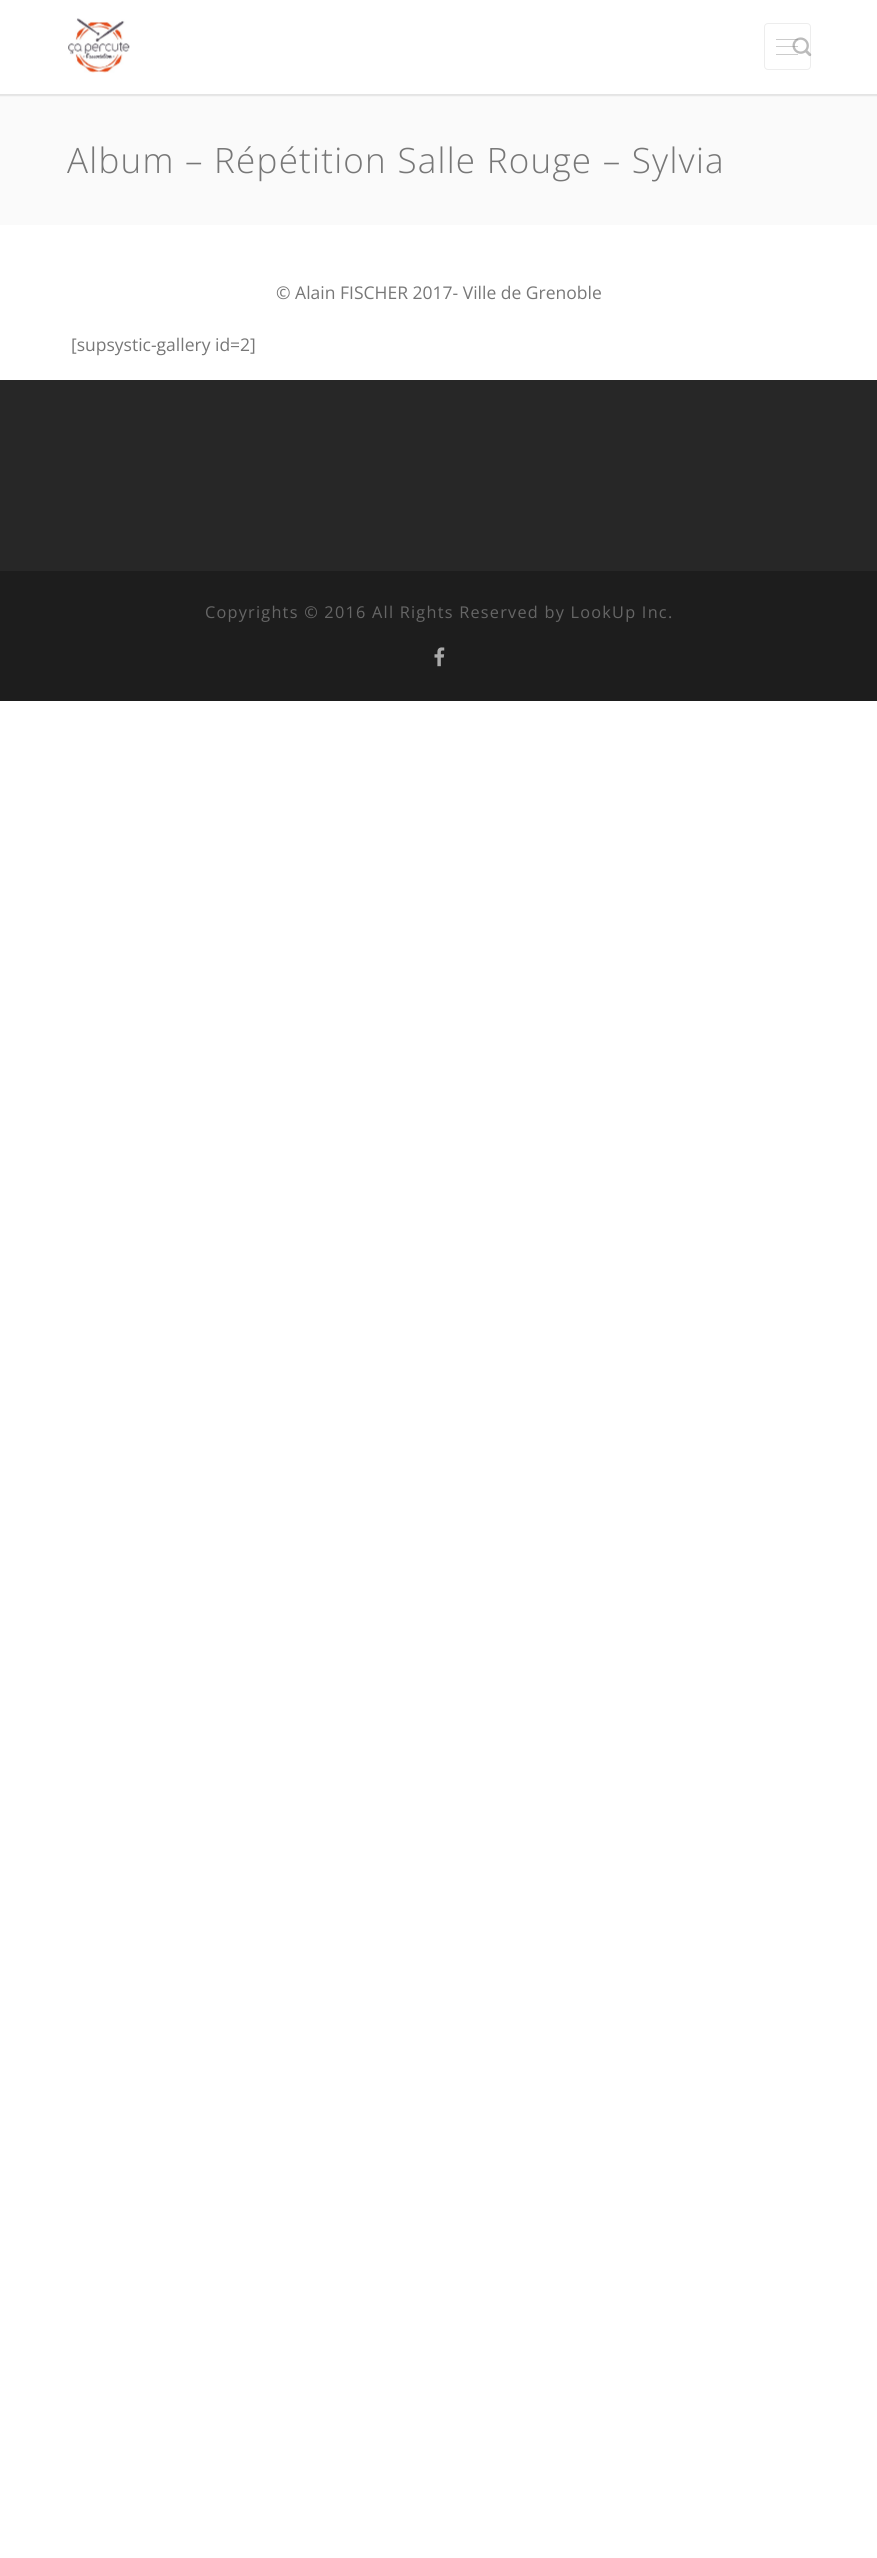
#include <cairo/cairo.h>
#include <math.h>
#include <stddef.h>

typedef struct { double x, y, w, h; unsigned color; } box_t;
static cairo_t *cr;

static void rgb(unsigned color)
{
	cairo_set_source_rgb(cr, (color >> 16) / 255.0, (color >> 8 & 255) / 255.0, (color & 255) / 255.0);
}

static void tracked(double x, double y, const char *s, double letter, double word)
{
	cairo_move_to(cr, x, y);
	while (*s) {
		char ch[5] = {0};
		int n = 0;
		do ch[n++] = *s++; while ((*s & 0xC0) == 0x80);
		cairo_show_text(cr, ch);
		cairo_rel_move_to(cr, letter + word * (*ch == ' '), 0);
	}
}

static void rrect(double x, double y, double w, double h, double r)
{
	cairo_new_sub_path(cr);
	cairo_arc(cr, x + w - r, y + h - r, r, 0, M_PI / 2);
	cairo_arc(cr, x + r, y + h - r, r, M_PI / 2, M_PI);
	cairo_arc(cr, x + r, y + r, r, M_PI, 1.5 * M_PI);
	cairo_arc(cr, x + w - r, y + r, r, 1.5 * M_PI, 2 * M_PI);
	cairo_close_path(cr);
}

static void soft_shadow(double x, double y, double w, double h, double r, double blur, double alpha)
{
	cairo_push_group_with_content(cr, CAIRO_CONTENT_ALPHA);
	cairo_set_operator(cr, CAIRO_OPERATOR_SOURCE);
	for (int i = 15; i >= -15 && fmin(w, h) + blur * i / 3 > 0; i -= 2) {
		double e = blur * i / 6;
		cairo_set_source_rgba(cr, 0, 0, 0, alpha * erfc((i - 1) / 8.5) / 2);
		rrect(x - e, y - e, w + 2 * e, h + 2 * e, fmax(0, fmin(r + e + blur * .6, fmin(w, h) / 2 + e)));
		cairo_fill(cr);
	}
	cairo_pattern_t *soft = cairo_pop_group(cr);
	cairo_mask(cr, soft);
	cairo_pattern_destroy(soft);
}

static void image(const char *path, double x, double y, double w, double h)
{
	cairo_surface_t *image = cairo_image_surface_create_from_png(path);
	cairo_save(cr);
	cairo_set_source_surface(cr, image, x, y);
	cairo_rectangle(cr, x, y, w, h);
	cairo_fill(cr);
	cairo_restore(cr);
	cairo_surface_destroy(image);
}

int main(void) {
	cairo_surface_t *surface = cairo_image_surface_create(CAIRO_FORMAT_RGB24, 877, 2558);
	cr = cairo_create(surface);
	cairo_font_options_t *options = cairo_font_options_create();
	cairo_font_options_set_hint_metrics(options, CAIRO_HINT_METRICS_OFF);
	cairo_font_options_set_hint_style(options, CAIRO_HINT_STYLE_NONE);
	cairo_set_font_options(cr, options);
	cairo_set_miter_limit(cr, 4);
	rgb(0xffffff);
	cairo_paint(cr);
	rgb(0xfafafa);
	cairo_rectangle(cr, 0, 95, 877, 130);
	cairo_fill(cr);
	rgb(0x000000);
	soft_shadow(-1, -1, 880, 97, 0, 0.5, 0.08);
	rgb(0xe4e4e4);
	cairo_rectangle(cr, 0, 94, 877, 1);
	cairo_fill(cr);
	rgb(0xffffff);
	cairo_rectangle(cr, 0, 0, 877, 94);
	cairo_fill(cr);
	rrect(764.5, 23.5, 46, 46, 3.5);
	rgb(0xededed);
	cairo_set_line_width(cr, 1);
	cairo_stroke(cr);
	{
		static const box_t items[] = {
			{776, 46, 22, 1, 0xcccccc},
			{776, 39, 22, 1, 0xcccccc},
			{776, 54, 22, 1, 0xcccccc},
		};
		for (size_t i = 0; i < sizeof items / sizeof *items; i++) {
			rgb(items[i].color);
			cairo_rectangle(cr, items[i].x, items[i].y, items[i].w, items[i].h);
			cairo_fill(cr);
		}
	}
	image("img/1.png", 68, 18, 62, 55);
	image("img/2.png", 792, 37, 20, 20);
	rgb(0x272727);
	cairo_rectangle(cr, 0, 380, 877, 191);
	cairo_fill(cr);
	rgb(0x1d1d1d);
	cairo_rectangle(cr, 0, 571, 877, 130);
	cairo_fill(cr);
	image("img/3.png", 434, 647, 11, 20);
	cairo_select_font_face(cr, "Open Sans Light", CAIRO_FONT_SLANT_NORMAL, CAIRO_FONT_WEIGHT_NORMAL);
	cairo_set_font_size(cr, 35);
	rgb(0x777777);
	tracked(67, 173, "Album – Répétition Salle Rouge – Sylvia", 1.25, 0);
	cairo_select_font_face(cr, "Open Sans", CAIRO_FONT_SLANT_NORMAL, CAIRO_FONT_WEIGHT_NORMAL);
	cairo_set_font_size(cr, 17.5);
	cairo_move_to(cr, 276, 299);
	cairo_show_text(cr, "© Alain FISCHER 2017- Ville de Grenoble");
	cairo_move_to(cr, 71, 351);
	cairo_show_text(cr, "[supsystic-gallery id=2]");
	cairo_set_font_size(cr, 16.25);
	rgb(0x666666);
	tracked(205, 618, "Copyrights © 2016 All Rights Reserved by LookUp Inc.", 1.25, 0);
	cairo_surface_write_to_png(surface, "page.png");
	cairo_font_options_destroy(options);
	cairo_destroy(cr);
	cairo_surface_destroy(surface);
	return 0;
}
